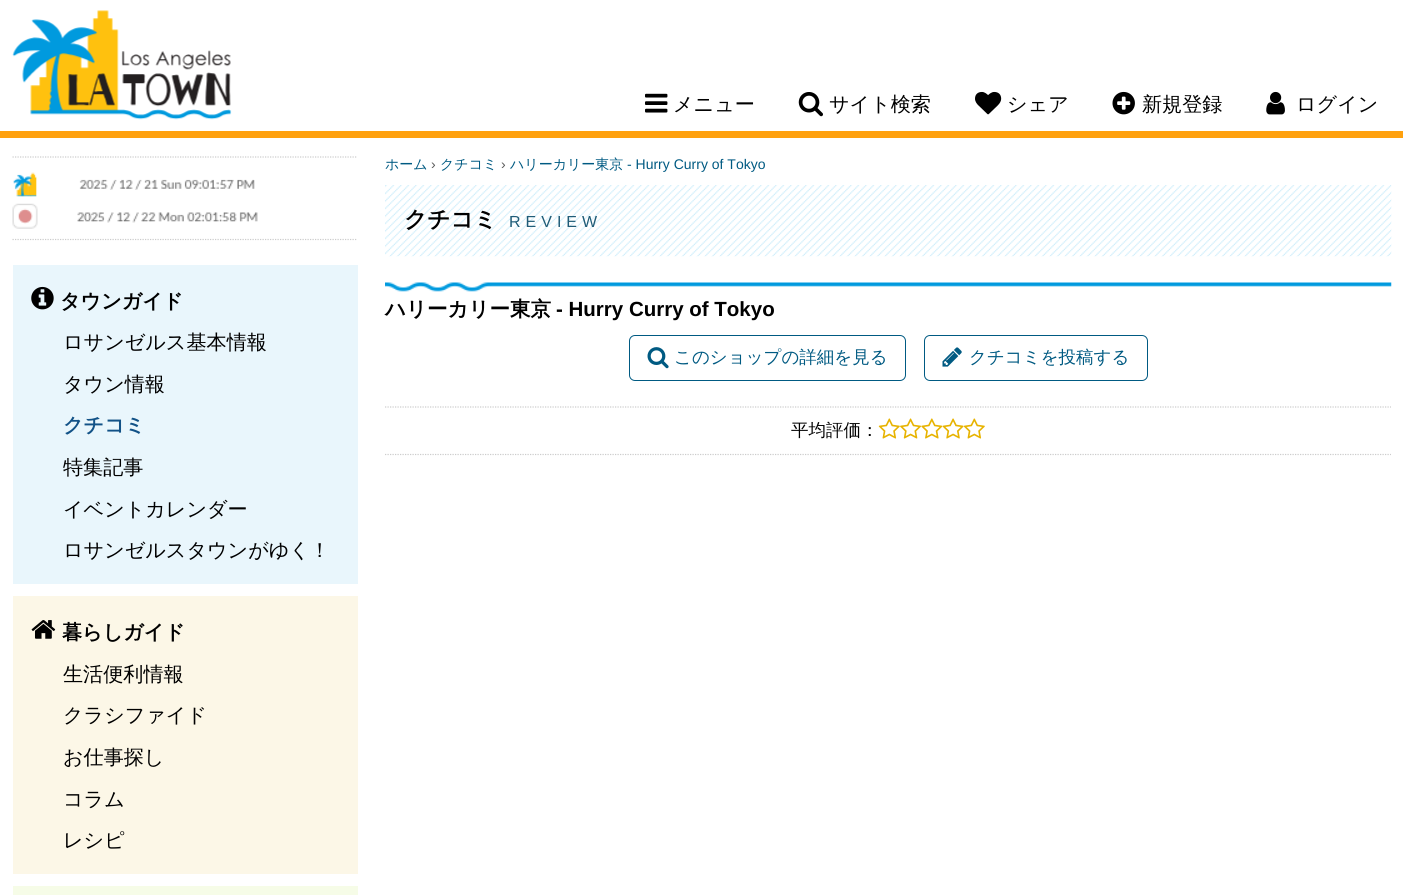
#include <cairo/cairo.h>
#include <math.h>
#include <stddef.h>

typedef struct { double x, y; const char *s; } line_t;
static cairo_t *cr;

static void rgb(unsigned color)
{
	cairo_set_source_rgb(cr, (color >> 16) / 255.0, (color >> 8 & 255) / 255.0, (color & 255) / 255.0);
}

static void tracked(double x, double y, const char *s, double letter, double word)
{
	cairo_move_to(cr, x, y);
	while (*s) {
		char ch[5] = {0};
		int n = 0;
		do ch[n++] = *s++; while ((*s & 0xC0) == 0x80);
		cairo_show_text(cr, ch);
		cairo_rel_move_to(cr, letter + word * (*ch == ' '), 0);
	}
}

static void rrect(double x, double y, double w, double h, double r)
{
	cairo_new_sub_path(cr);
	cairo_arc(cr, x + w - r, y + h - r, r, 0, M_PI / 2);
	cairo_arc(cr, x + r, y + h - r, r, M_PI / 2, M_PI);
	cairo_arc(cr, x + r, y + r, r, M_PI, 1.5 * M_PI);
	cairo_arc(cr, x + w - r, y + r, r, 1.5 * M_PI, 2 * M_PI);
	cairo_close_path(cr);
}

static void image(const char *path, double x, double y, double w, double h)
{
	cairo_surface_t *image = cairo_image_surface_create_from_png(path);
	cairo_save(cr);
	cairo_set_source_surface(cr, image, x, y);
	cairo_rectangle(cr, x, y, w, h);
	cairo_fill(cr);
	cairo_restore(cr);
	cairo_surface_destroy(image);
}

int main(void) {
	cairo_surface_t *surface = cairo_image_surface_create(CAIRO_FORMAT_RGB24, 1403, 895);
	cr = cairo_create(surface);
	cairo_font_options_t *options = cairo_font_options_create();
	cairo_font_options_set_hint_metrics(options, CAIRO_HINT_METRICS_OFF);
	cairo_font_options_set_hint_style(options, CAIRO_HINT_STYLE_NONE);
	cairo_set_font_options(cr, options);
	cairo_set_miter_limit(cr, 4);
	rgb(0xffffff);
	cairo_paint(cr);
	rgb(0xffa10e);
	cairo_rectangle(cr, 0, 131, 1403, 7);
	cairo_fill(cr);
	image("img/1.png", 12, 10, 220, 110);
	image("img/2.png", 645, 93, 23, 20);
	image("img/3.png", 798, 92, 25, 25);
	image("img/4.png", 975, 91, 27, 24);
	image("img/5.png", 1112, 91, 23, 24);
	image("img/6.png", 1266, 91, 19, 24);
	cairo_new_path(cr);
	cairo_move_to(cr, 12.5, 157);
	cairo_line_to(cr, 357.5, 157);
	rgb(0xcccccc);
	cairo_set_line_width(cr, 1.2);
	cairo_set_dash(cr, (double[]){1.25, 1.25}, 2, 0);
	cairo_stroke(cr);
	cairo_new_path(cr);
	cairo_move_to(cr, 12.5, 239.5);
	cairo_line_to(cr, 357.5, 239.5);
	cairo_stroke(cr);
	image("img/7.png", 13, 172, 24, 25);
	image("img/8.png", 79, 179, 176, 11);
	image("img/9.png", 12, 203, 26, 26);
	image("img/10.png", 77, 212, 181, 11);
	rgb(0xe9f6fc);
	cairo_rectangle(cr, 13, 265, 345, 319);
	cairo_fill(cr);
	image("img/11.png", 31, 286, 23, 24);
	rgb(0xfcf7e7);
	cairo_rectangle(cr, 13, 596, 345, 278);
	cairo_fill(cr);
	image("img/12.png", 31, 620, 25, 19);
	rgb(0xf6fce7);
	cairo_rectangle(cr, 13, 886, 345, 9);
	cairo_fill(cr);
	image("img/13.png", 385, 185, 1007, 72);
	image("img/14.png", 385, 282, 1007, 10);
	rrect(629.5, 335.5, 276, 45, 5.5);
	rgb(0x005a82);
	cairo_set_line_width(cr, 1);
	cairo_set_dash(cr, NULL, 0, 0);
	cairo_stroke(cr);
	image("img/15.png", 647, 347, 22, 22);
	rrect(924.5, 335.5, 223, 45, 5.5);
	cairo_stroke(cr);
	image("img/16.png", 942, 347, 20, 20);
	cairo_new_path(cr);
	cairo_move_to(cr, 385, 407);
	cairo_line_to(cr, 1391, 407);
	rgb(0xcccccc);
	cairo_set_line_width(cr, 1.2);
	cairo_set_dash(cr, (double[]){1.25, 1.25}, 2, 0);
	cairo_stroke(cr);
	cairo_new_path(cr);
	cairo_move_to(cr, 385, 454.5);
	cairo_line_to(cr, 1391, 454.5);
	cairo_stroke(cr);
	image("img/17.png", 878, 418, 22, 21);
	image("img/18.png", 900, 418, 22, 21);
	image("img/19.png", 921, 418, 22, 21);
	image("img/20.png", 942, 418, 22, 21);
	image("img/21.png", 963, 418, 22, 21);
	cairo_select_font_face(cr, "WenQuanYi Zen Hei Medium", CAIRO_FONT_SLANT_NORMAL, CAIRO_FONT_WEIGHT_NORMAL);
	cairo_set_font_size(cr, 20.1);
	rgb(0x000000);
	{
		static const line_t items[] = {
			{673, 111, "メニュー"},
			{829, 111, "サイト検索"},
			{1007, 111, "シェア"},
			{1142, 111, "新規登録"},
			{1296, 111, "ログイン"},
		};
		for (size_t i = 0; i < sizeof items / sizeof *items; i++) {
			cairo_move_to(cr, items[i].x, items[i].y);
			cairo_show_text(cr, items[i].s);
		}
	}
	cairo_select_font_face(cr, "WenQuanYi Zen Hei", CAIRO_FONT_SLANT_NORMAL, CAIRO_FONT_WEIGHT_BOLD);
	cairo_move_to(cr, 60, 308);
	cairo_show_text(cr, "タウンガイド");
	cairo_select_font_face(cr, "WenQuanYi Zen Hei Medium", CAIRO_FONT_SLANT_NORMAL, CAIRO_FONT_WEIGHT_NORMAL);
	cairo_move_to(cr, 63, 349);
	cairo_show_text(cr, "ロサンゼルス基本情報");
	cairo_move_to(cr, 63, 391);
	cairo_show_text(cr, "タウン情報");
	cairo_select_font_face(cr, "WenQuanYi Zen Hei", CAIRO_FONT_SLANT_NORMAL, CAIRO_FONT_WEIGHT_BOLD);
	rgb(0x125287);
	cairo_move_to(cr, 63, 432);
	cairo_show_text(cr, "クチコミ");
	cairo_select_font_face(cr, "WenQuanYi Zen Hei Medium", CAIRO_FONT_SLANT_NORMAL, CAIRO_FONT_WEIGHT_NORMAL);
	rgb(0x000000);
	{
		static const line_t items[] = {
			{63, 474, "特集記事"},
			{63, 516, "イベントカレンダー"},
			{63, 557, "ロサンゼルスタウンがゆく！"},
		};
		for (size_t i = 0; i < sizeof items / sizeof *items; i++) {
			cairo_move_to(cr, items[i].x, items[i].y);
			cairo_show_text(cr, items[i].s);
		}
	}
	cairo_select_font_face(cr, "WenQuanYi Zen Hei", CAIRO_FONT_SLANT_NORMAL, CAIRO_FONT_WEIGHT_BOLD);
	cairo_move_to(cr, 62, 639);
	cairo_show_text(cr, "暮らしガイド");
	cairo_select_font_face(cr, "WenQuanYi Zen Hei Medium", CAIRO_FONT_SLANT_NORMAL, CAIRO_FONT_WEIGHT_NORMAL);
	{
		static const line_t items[] = {
			{63, 681, "生活便利情報"},
			{63, 722, "クラシファイド"},
			{63, 764, "お仕事探し"},
			{63, 806, "コラム"},
			{63, 847, "レシピ"},
		};
		for (size_t i = 0; i < sizeof items / sizeof *items; i++) {
			cairo_move_to(cr, items[i].x, items[i].y);
			cairo_show_text(cr, items[i].s);
		}
	}
	cairo_set_font_size(cr, 14);
	rgb(0x005a82);
	cairo_move_to(cr, 385, 169);
	cairo_show_text(cr, "ホーム");
	cairo_select_font_face(cr, "Liberation Sans", CAIRO_FONT_SLANT_NORMAL, CAIRO_FONT_WEIGHT_NORMAL);
	rgb(0x595959);
	cairo_move_to(cr, 431, 169);
	cairo_show_text(cr, "›");
	cairo_select_font_face(cr, "WenQuanYi Zen Hei Medium", CAIRO_FONT_SLANT_NORMAL, CAIRO_FONT_WEIGHT_NORMAL);
	rgb(0x005a82);
	cairo_move_to(cr, 440, 169);
	cairo_show_text(cr, "クチコミ");
	cairo_select_font_face(cr, "Liberation Sans", CAIRO_FONT_SLANT_NORMAL, CAIRO_FONT_WEIGHT_NORMAL);
	rgb(0x595959);
	cairo_move_to(cr, 501, 169);
	cairo_show_text(cr, "›");
	cairo_select_font_face(cr, "WenQuanYi Zen Hei Medium", CAIRO_FONT_SLANT_NORMAL, CAIRO_FONT_WEIGHT_NORMAL);
	rgb(0x005a82);
	cairo_move_to(cr, 510, 169);
	cairo_show_text(cr, "ハリーカリー東京");
	cairo_select_font_face(cr, "Liberation Sans", CAIRO_FONT_SLANT_NORMAL, CAIRO_FONT_WEIGHT_NORMAL);
	cairo_move_to(cr, 627, 169);
	cairo_show_text(cr, "- Hurry Curry of Tokyo");
	cairo_select_font_face(cr, "WenQuanYi Zen Hei", CAIRO_FONT_SLANT_NORMAL, CAIRO_FONT_WEIGHT_BOLD);
	cairo_set_font_size(cr, 22.75);
	rgb(0x000000);
	cairo_move_to(cr, 404, 227);
	cairo_show_text(cr, "クチコミ");
	cairo_select_font_face(cr, "Liberation Sans", CAIRO_FONT_SLANT_NORMAL, CAIRO_FONT_WEIGHT_NORMAL);
	cairo_set_font_size(cr, 16);
	rgb(0x205c77);
	tracked(509, 227, "REVIEW", 5, 0);
	cairo_select_font_face(cr, "WenQuanYi Zen Hei", CAIRO_FONT_SLANT_NORMAL, CAIRO_FONT_WEIGHT_BOLD);
	cairo_set_font_size(cr, 20.5);
	rgb(0x000000);
	cairo_move_to(cr, 385, 316);
	cairo_show_text(cr, "ハリーカリー東京");
	cairo_select_font_face(cr, "Liberation Sans", CAIRO_FONT_SLANT_NORMAL, CAIRO_FONT_WEIGHT_BOLD);
	cairo_move_to(cr, 556, 316);
	cairo_show_text(cr, "- Hurry Curry of Tokyo");
	cairo_select_font_face(cr, "WenQuanYi Zen Hei Medium", CAIRO_FONT_SLANT_NORMAL, CAIRO_FONT_WEIGHT_NORMAL);
	cairo_set_font_size(cr, 17.5);
	rgb(0x005a82);
	cairo_move_to(cr, 674, 363);
	cairo_show_text(cr, "このショップの詳細を見る");
	cairo_move_to(cr, 969, 363);
	cairo_show_text(cr, "クチコミを投稿する");
	rgb(0x000000);
	cairo_move_to(cr, 791, 436);
	cairo_show_text(cr, "平均評価：");
	cairo_surface_write_to_png(surface, "page.png");
	cairo_font_options_destroy(options);
	cairo_destroy(cr);
	cairo_surface_destroy(surface);
	return 0;
}
